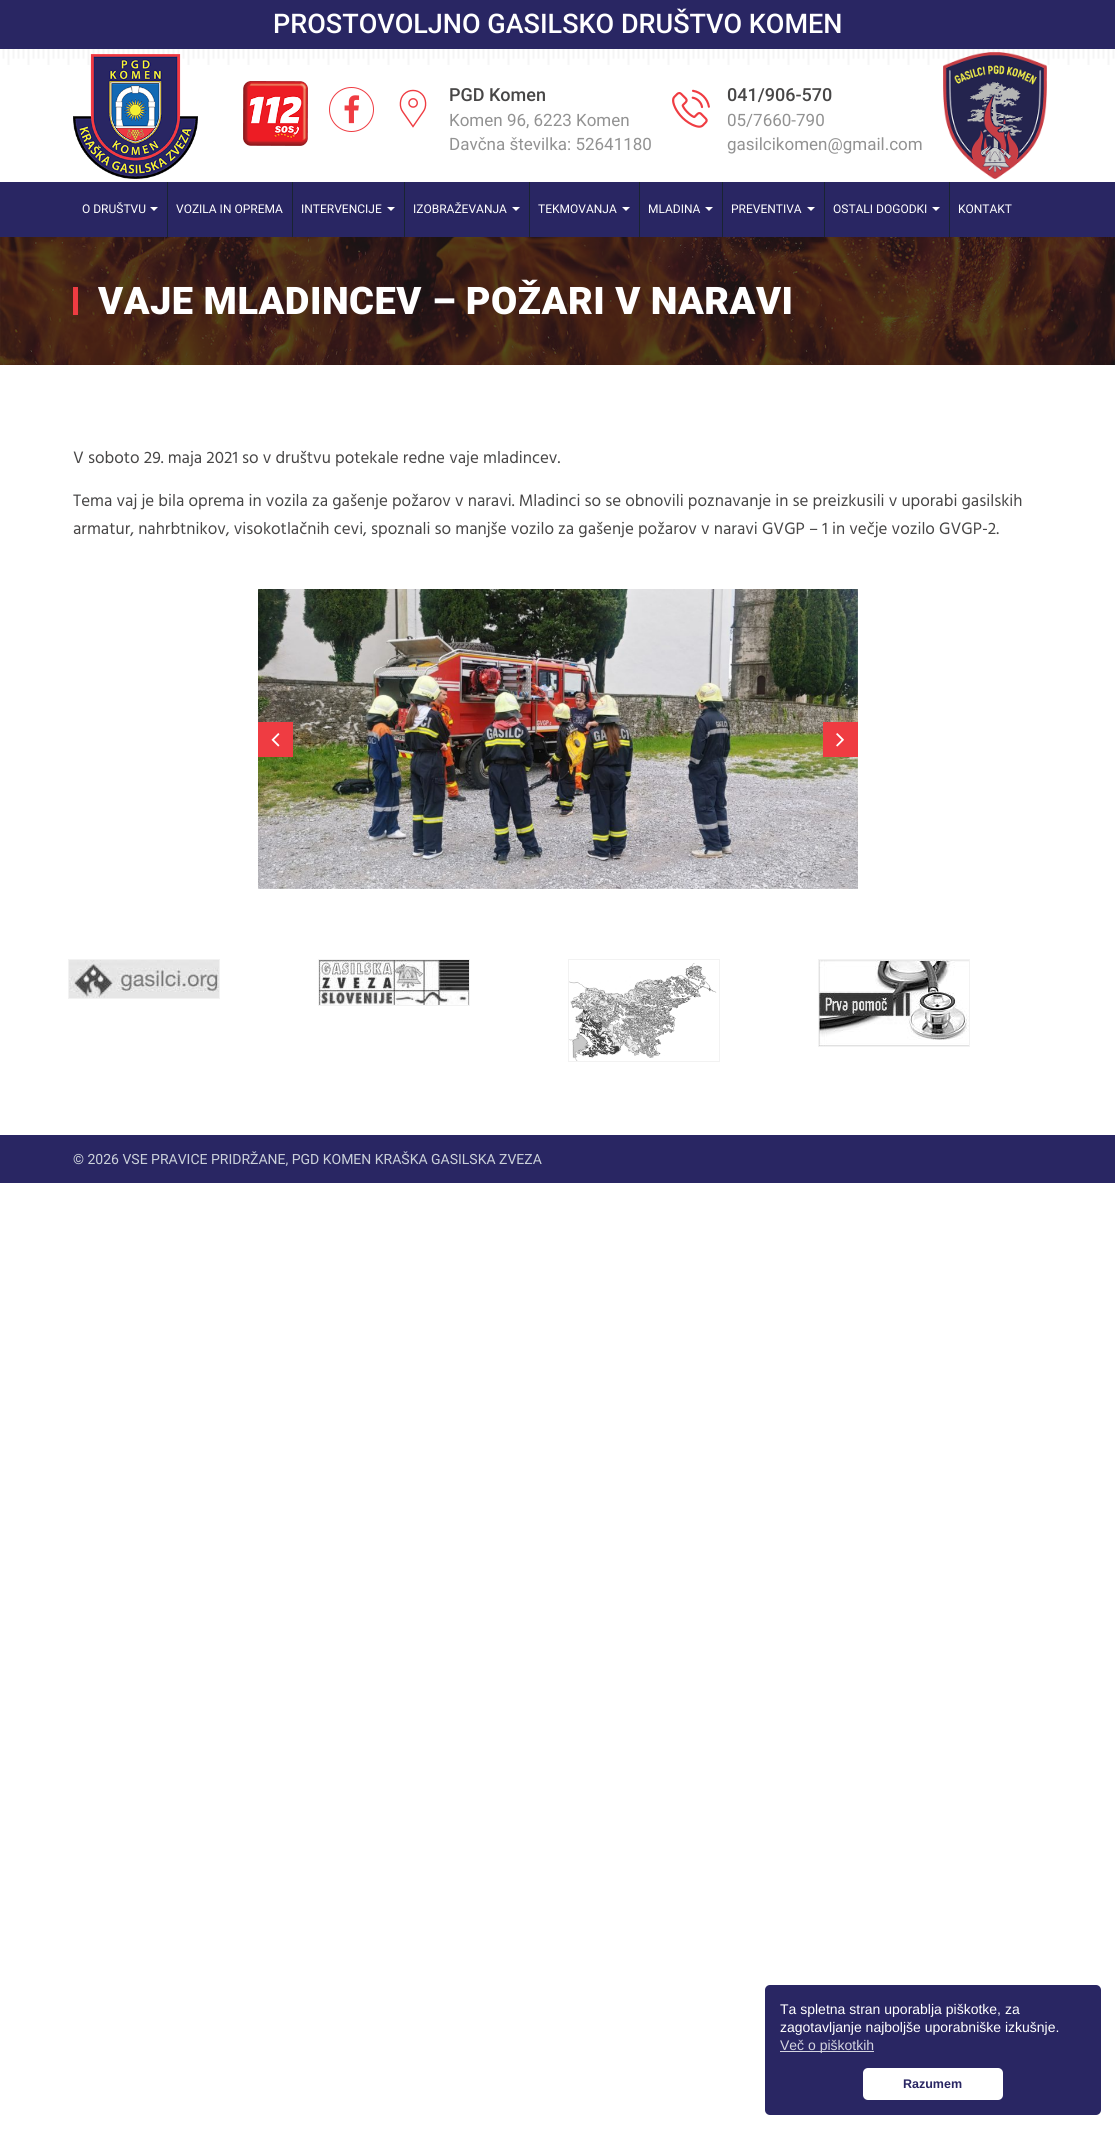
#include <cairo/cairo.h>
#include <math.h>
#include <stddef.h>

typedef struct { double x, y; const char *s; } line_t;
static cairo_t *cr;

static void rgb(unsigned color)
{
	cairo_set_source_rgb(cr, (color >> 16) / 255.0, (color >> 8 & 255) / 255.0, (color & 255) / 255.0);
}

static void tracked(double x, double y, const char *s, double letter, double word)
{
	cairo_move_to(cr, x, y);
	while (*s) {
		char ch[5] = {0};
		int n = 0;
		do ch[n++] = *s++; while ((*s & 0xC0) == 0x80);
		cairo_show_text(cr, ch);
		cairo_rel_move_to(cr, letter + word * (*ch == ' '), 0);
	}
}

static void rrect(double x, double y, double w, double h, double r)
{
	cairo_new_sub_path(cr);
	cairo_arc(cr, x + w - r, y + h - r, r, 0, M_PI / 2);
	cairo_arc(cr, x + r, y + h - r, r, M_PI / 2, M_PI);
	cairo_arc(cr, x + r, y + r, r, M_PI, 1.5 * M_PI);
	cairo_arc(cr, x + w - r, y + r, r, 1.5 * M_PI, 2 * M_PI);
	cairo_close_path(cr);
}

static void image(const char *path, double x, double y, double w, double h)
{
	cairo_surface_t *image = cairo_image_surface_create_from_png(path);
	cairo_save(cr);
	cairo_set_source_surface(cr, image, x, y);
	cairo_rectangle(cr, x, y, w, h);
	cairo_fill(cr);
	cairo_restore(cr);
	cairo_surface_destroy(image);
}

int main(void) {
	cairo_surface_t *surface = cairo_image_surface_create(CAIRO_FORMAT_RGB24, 1115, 2129);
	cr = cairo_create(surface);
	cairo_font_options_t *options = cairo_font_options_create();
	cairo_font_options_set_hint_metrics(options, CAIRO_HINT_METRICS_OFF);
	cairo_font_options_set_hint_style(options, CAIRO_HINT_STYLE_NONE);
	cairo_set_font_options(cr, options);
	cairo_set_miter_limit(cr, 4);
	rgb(0xffffff);
	cairo_paint(cr);
	rgb(0x292663);
	cairo_rectangle(cr, 0, 0, 1115, 49);
	cairo_fill(cr);
	image("img/1.png", 2, 49, 1113, 16);
	image("img/2.png", 73, 54, 125, 125);
	image("img/3.png", 243, 81, 65, 65);
	cairo_arc(cr, 351.5, 109.5, 22, 0, 2 * M_PI);
	rgb(0xef3c42);
	cairo_set_line_width(cr, 1);
	cairo_stroke(cr);
	image("img/4.png", 344, 95, 16, 29);
	image("img/5.png", 399, 89, 28, 39);
	image("img/6.png", 672, 89, 38, 39);
	image("img/7.png", 943, 52, 104, 127);
	rgb(0x292663);
	cairo_rectangle(cr, 0, 182, 1115, 55);
	cairo_fill(cr);
	rgb(0xffffff);
	cairo_new_path(cr);
	cairo_move_to(cr, 150, 207);
	cairo_line_to(cr, 158, 207);
	cairo_line_to(cr, 154, 211);
	cairo_close_path(cr);
	cairo_fill(cr);
	rgb(0x192432);
	cairo_rectangle(cr, 167, 182, 1, 55);
	cairo_fill(cr);
	cairo_rectangle(cr, 292, 182, 1, 55);
	cairo_fill(cr);
	rgb(0xffffff);
	cairo_new_path(cr);
	cairo_move_to(cr, 387, 207);
	cairo_line_to(cr, 395, 207);
	cairo_line_to(cr, 391, 211);
	cairo_close_path(cr);
	cairo_fill(cr);
	rgb(0x192432);
	cairo_rectangle(cr, 404, 182, 1, 55);
	cairo_fill(cr);
	rgb(0xffffff);
	cairo_new_path(cr);
	cairo_move_to(cr, 512, 207);
	cairo_line_to(cr, 520, 207);
	cairo_line_to(cr, 516, 211);
	cairo_close_path(cr);
	cairo_fill(cr);
	rgb(0x192432);
	cairo_rectangle(cr, 529, 182, 1, 55);
	cairo_fill(cr);
	rgb(0xffffff);
	cairo_new_path(cr);
	cairo_move_to(cr, 622, 207);
	cairo_line_to(cr, 630, 207);
	cairo_line_to(cr, 626, 211);
	cairo_close_path(cr);
	cairo_fill(cr);
	rgb(0x192432);
	cairo_rectangle(cr, 639, 182, 1, 55);
	cairo_fill(cr);
	rgb(0xffffff);
	cairo_new_path(cr);
	cairo_move_to(cr, 705, 207);
	cairo_line_to(cr, 713, 207);
	cairo_line_to(cr, 709, 211);
	cairo_close_path(cr);
	cairo_fill(cr);
	rgb(0x192432);
	cairo_rectangle(cr, 722, 182, 1, 55);
	cairo_fill(cr);
	rgb(0xffffff);
	cairo_new_path(cr);
	cairo_move_to(cr, 807, 207);
	cairo_line_to(cr, 815, 207);
	cairo_line_to(cr, 811, 211);
	cairo_close_path(cr);
	cairo_fill(cr);
	rgb(0x192432);
	cairo_rectangle(cr, 824, 182, 1, 55);
	cairo_fill(cr);
	rgb(0xffffff);
	cairo_new_path(cr);
	cairo_move_to(cr, 932, 207);
	cairo_line_to(cr, 940, 207);
	cairo_line_to(cr, 936, 211);
	cairo_close_path(cr);
	cairo_fill(cr);
	rgb(0x192432);
	cairo_rectangle(cr, 949, 182, 1, 55);
	cairo_fill(cr);
	image("img/8.png", 0, 237, 1115, 128);
	rgb(0xef3c42);
	cairo_rectangle(cr, 73, 287, 5, 28);
	cairo_fill(cr);
	image("img/9.png", 258, 589, 600, 300);
	image("img/10.png", 857, 604, 1, 285);
	cairo_rectangle(cr, 258, 722, 35, 35);
	cairo_fill(cr);
	image("img/11.png", 271, 733, 9, 14);
	cairo_rectangle(cr, 823, 722, 35, 35);
	cairo_fill(cr);
	image("img/12.png", 836, 733, 8, 14);
	cairo_rectangle(cr, 68.5, 959.5, 151, 39);
	rgb(0xf2f2f2);
	cairo_stroke(cr);
	image("img/13.png", 69, 960, 150, 38);
	cairo_rectangle(cr, 318.5, 959.5, 151, 46);
	cairo_stroke(cr);
	image("img/14.png", 319, 960, 150, 45);
	cairo_rectangle(cr, 568.5, 959.5, 151, 102);
	cairo_stroke(cr);
	image("img/15.png", 569, 963, 148, 98);
	cairo_rectangle(cr, 818.5, 959.5, 151, 87);
	cairo_stroke(cr);
	image("img/16.png", 819, 960, 150, 86);
	rgb(0x292663);
	cairo_rectangle(cr, 0, 1135, 1115, 48);
	cairo_fill(cr);
	rrect(765, 1985, 336, 130, 5);
	cairo_fill(cr);
	rgb(0xd4d4e0);
	cairo_rectangle(cr, 780, 2051, 94, 1);
	cairo_fill(cr);
	rgb(0xffffff);
	rrect(863, 2068, 140, 32, 5);
	cairo_fill(cr);
	cairo_select_font_face(cr, "Roboto Medium", CAIRO_FONT_SLANT_NORMAL, CAIRO_FONT_WEIGHT_NORMAL);
	cairo_set_font_size(cr, 27);
	cairo_move_to(cr, 273, 33);
	cairo_show_text(cr, "PROSTOVOLJNO GASILSKO DRUŠTVO KOMEN");
	cairo_set_font_size(cr, 18);
	rgb(0x474646);
	cairo_move_to(cr, 449, 101);
	cairo_show_text(cr, "PGD Komen");
	cairo_select_font_face(cr, "Roboto", CAIRO_FONT_SLANT_NORMAL, CAIRO_FONT_WEIGHT_NORMAL);
	cairo_set_font_size(cr, 17);
	rgb(0x929292);
	cairo_move_to(cr, 449, 126);
	cairo_show_text(cr, "Komen 96, 6223 Komen");
	cairo_move_to(cr, 449, 150);
	cairo_show_text(cr, "Davčna številka: 52641180");
	cairo_select_font_face(cr, "Roboto Medium", CAIRO_FONT_SLANT_NORMAL, CAIRO_FONT_WEIGHT_NORMAL);
	cairo_set_font_size(cr, 18);
	rgb(0x474646);
	cairo_move_to(cr, 727, 101);
	cairo_show_text(cr, "041/906-570");
	cairo_select_font_face(cr, "Roboto", CAIRO_FONT_SLANT_NORMAL, CAIRO_FONT_WEIGHT_NORMAL);
	cairo_set_font_size(cr, 17);
	rgb(0x929292);
	cairo_move_to(cr, 727, 126);
	cairo_show_text(cr, "05/7660-790");
	cairo_move_to(cr, 727, 150);
	cairo_show_text(cr, "gasilcikomen@gmail.com");
	cairo_set_font_size(cr, 12);
	rgb(0xffffff);
	{
		static const line_t items[] = {
			{82, 213, "O DRUŠTVU"},
			{176, 213, "VOZILA IN OPREMA"},
			{301, 213, "INTERVENCIJE"},
			{413, 213, "IZOBRAŽEVANJA"},
			{538, 213, "TEKMOVANJA"},
			{648, 213, "MLADINA"},
			{731, 213, "PREVENTIVA"},
			{833, 213, "OSTALI DOGODKI"},
			{958, 213, "KONTAKT"},
		};
		for (size_t i = 0; i < sizeof items / sizeof *items; i++) {
			cairo_move_to(cr, items[i].x, items[i].y);
			cairo_show_text(cr, items[i].s);
		}
	}
	cairo_select_font_face(cr, "Roboto Black", CAIRO_FONT_SLANT_NORMAL, CAIRO_FONT_WEIGHT_NORMAL);
	cairo_set_font_size(cr, 38);
	tracked(98, 314, "VAJE MLADINCEV – POŽARI V NARAVI", 0.5, 0);
	cairo_select_font_face(cr, "Hind", CAIRO_FONT_SLANT_NORMAL, CAIRO_FONT_WEIGHT_NORMAL);
	cairo_set_font_size(cr, 17);
	rgb(0x474646);
	{
		static const line_t items[] = {
			{73, 463, "V soboto 29. maja 2021 so v društvu potekale redne vaje mladincev."},
			{73, 506, "Tema vaj je bila oprema in vozila za gašenje požarov v naravi. Mladinci so se obnovili poznavanje in se preizkusili v uporabi gasilskih"},
			{73, 534, "armatur, nahrbtnikov, visokotlačnih cevi, spoznali so manjše vozilo za gašenje požarov v naravi GVGP – 1 in večje vozilo GVGP-2."},
		};
		for (size_t i = 0; i < sizeof items / sizeof *items; i++) {
			cairo_move_to(cr, items[i].x, items[i].y);
			cairo_show_text(cr, items[i].s);
		}
	}
	cairo_select_font_face(cr, "Roboto", CAIRO_FONT_SLANT_NORMAL, CAIRO_FONT_WEIGHT_NORMAL);
	cairo_set_font_size(cr, 14);
	rgb(0xcbd1da);
	cairo_move_to(cr, 73, 1164);
	cairo_show_text(cr, "© 2026 VSE PRAVICE PRIDRŽANE, PGD KOMEN KRAŠKA GASILSKA ZVEZA");
	cairo_select_font_face(cr, "Liberation Sans", CAIRO_FONT_SLANT_NORMAL, CAIRO_FONT_WEIGHT_NORMAL);
	rgb(0xffffff);
	cairo_move_to(cr, 780, 2014);
	cairo_show_text(cr, "Ta spletna stran uporablja piškotke, za");
	cairo_move_to(cr, 780, 2032);
	cairo_show_text(cr, "zagotavljanje najboljše uporabniške izkušnje.");
	rgb(0xd4d4e0);
	cairo_move_to(cr, 780, 2050);
	cairo_show_text(cr, "Več o piškotkih");
	cairo_select_font_face(cr, "Liberation Sans", CAIRO_FONT_SLANT_NORMAL, CAIRO_FONT_WEIGHT_BOLD);
	cairo_set_font_size(cr, 12.5);
	rgb(0x292663);
	cairo_move_to(cr, 903, 2088);
	cairo_show_text(cr, "Razumem");
	cairo_surface_write_to_png(surface, "page.png");
	cairo_font_options_destroy(options);
	cairo_destroy(cr);
	cairo_surface_destroy(surface);
	return 0;
}
